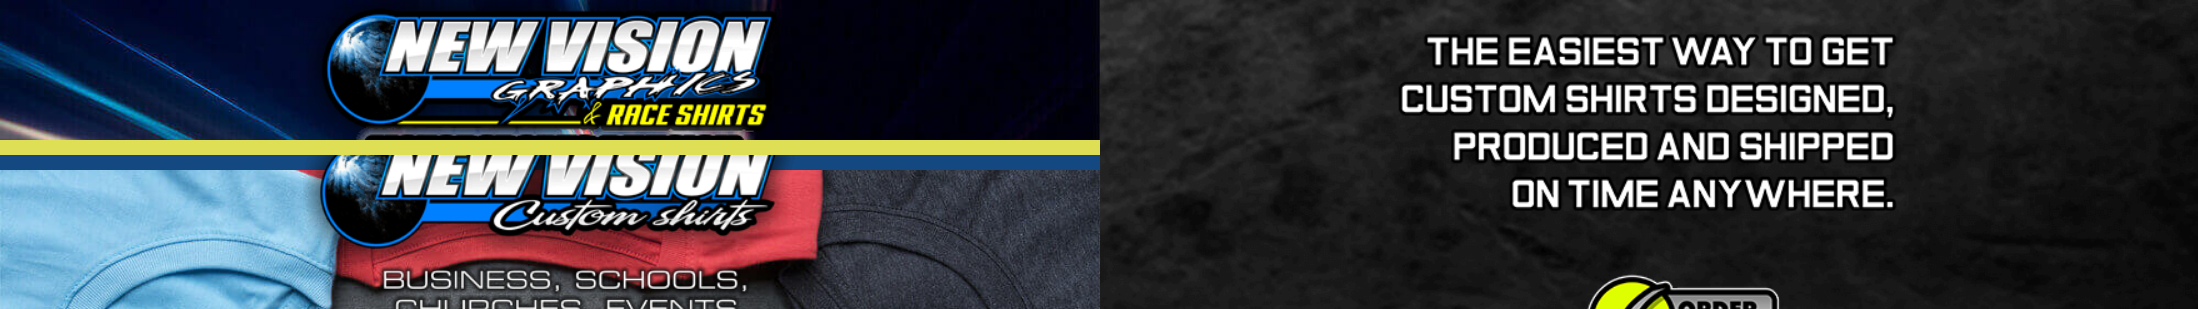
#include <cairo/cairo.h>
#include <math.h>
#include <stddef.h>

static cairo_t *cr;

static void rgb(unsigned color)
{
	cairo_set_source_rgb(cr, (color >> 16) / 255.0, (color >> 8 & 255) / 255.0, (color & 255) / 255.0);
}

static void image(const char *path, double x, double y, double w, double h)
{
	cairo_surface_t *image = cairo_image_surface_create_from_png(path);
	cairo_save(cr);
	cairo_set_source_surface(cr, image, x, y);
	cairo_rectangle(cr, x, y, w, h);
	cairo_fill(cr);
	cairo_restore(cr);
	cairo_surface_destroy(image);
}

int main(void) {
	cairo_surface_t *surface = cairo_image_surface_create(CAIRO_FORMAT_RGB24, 2198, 309);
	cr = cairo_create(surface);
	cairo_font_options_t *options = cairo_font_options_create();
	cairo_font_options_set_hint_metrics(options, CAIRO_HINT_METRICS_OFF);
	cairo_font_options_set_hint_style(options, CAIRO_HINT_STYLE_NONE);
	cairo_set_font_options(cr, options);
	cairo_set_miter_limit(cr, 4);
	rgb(0xffffff);
	cairo_paint(cr);
	image("img/1.png", 1100, 0, 1098, 309);
	image("img/2.png", 0, 0, 1100, 140);
	image("img/3.png", 306, 0, 475, 140);
	rgb(0xdfdf56);
	cairo_rectangle(cr, 0, 140, 1100, 15);
	cairo_fill(cr);
	rgb(0x144880);
	cairo_rectangle(cr, 0, 155, 1100, 15);
	cairo_fill(cr);
	image("img/5.png", 0, 170, 1100, 139);
	image("img/4.png", 303, 155, 492, 154);
	image("img/6.png", 1398, 34, 499, 275);
	cairo_surface_write_to_png(surface, "page.png");
	cairo_font_options_destroy(options);
	cairo_destroy(cr);
	cairo_surface_destroy(surface);
	return 0;
}
